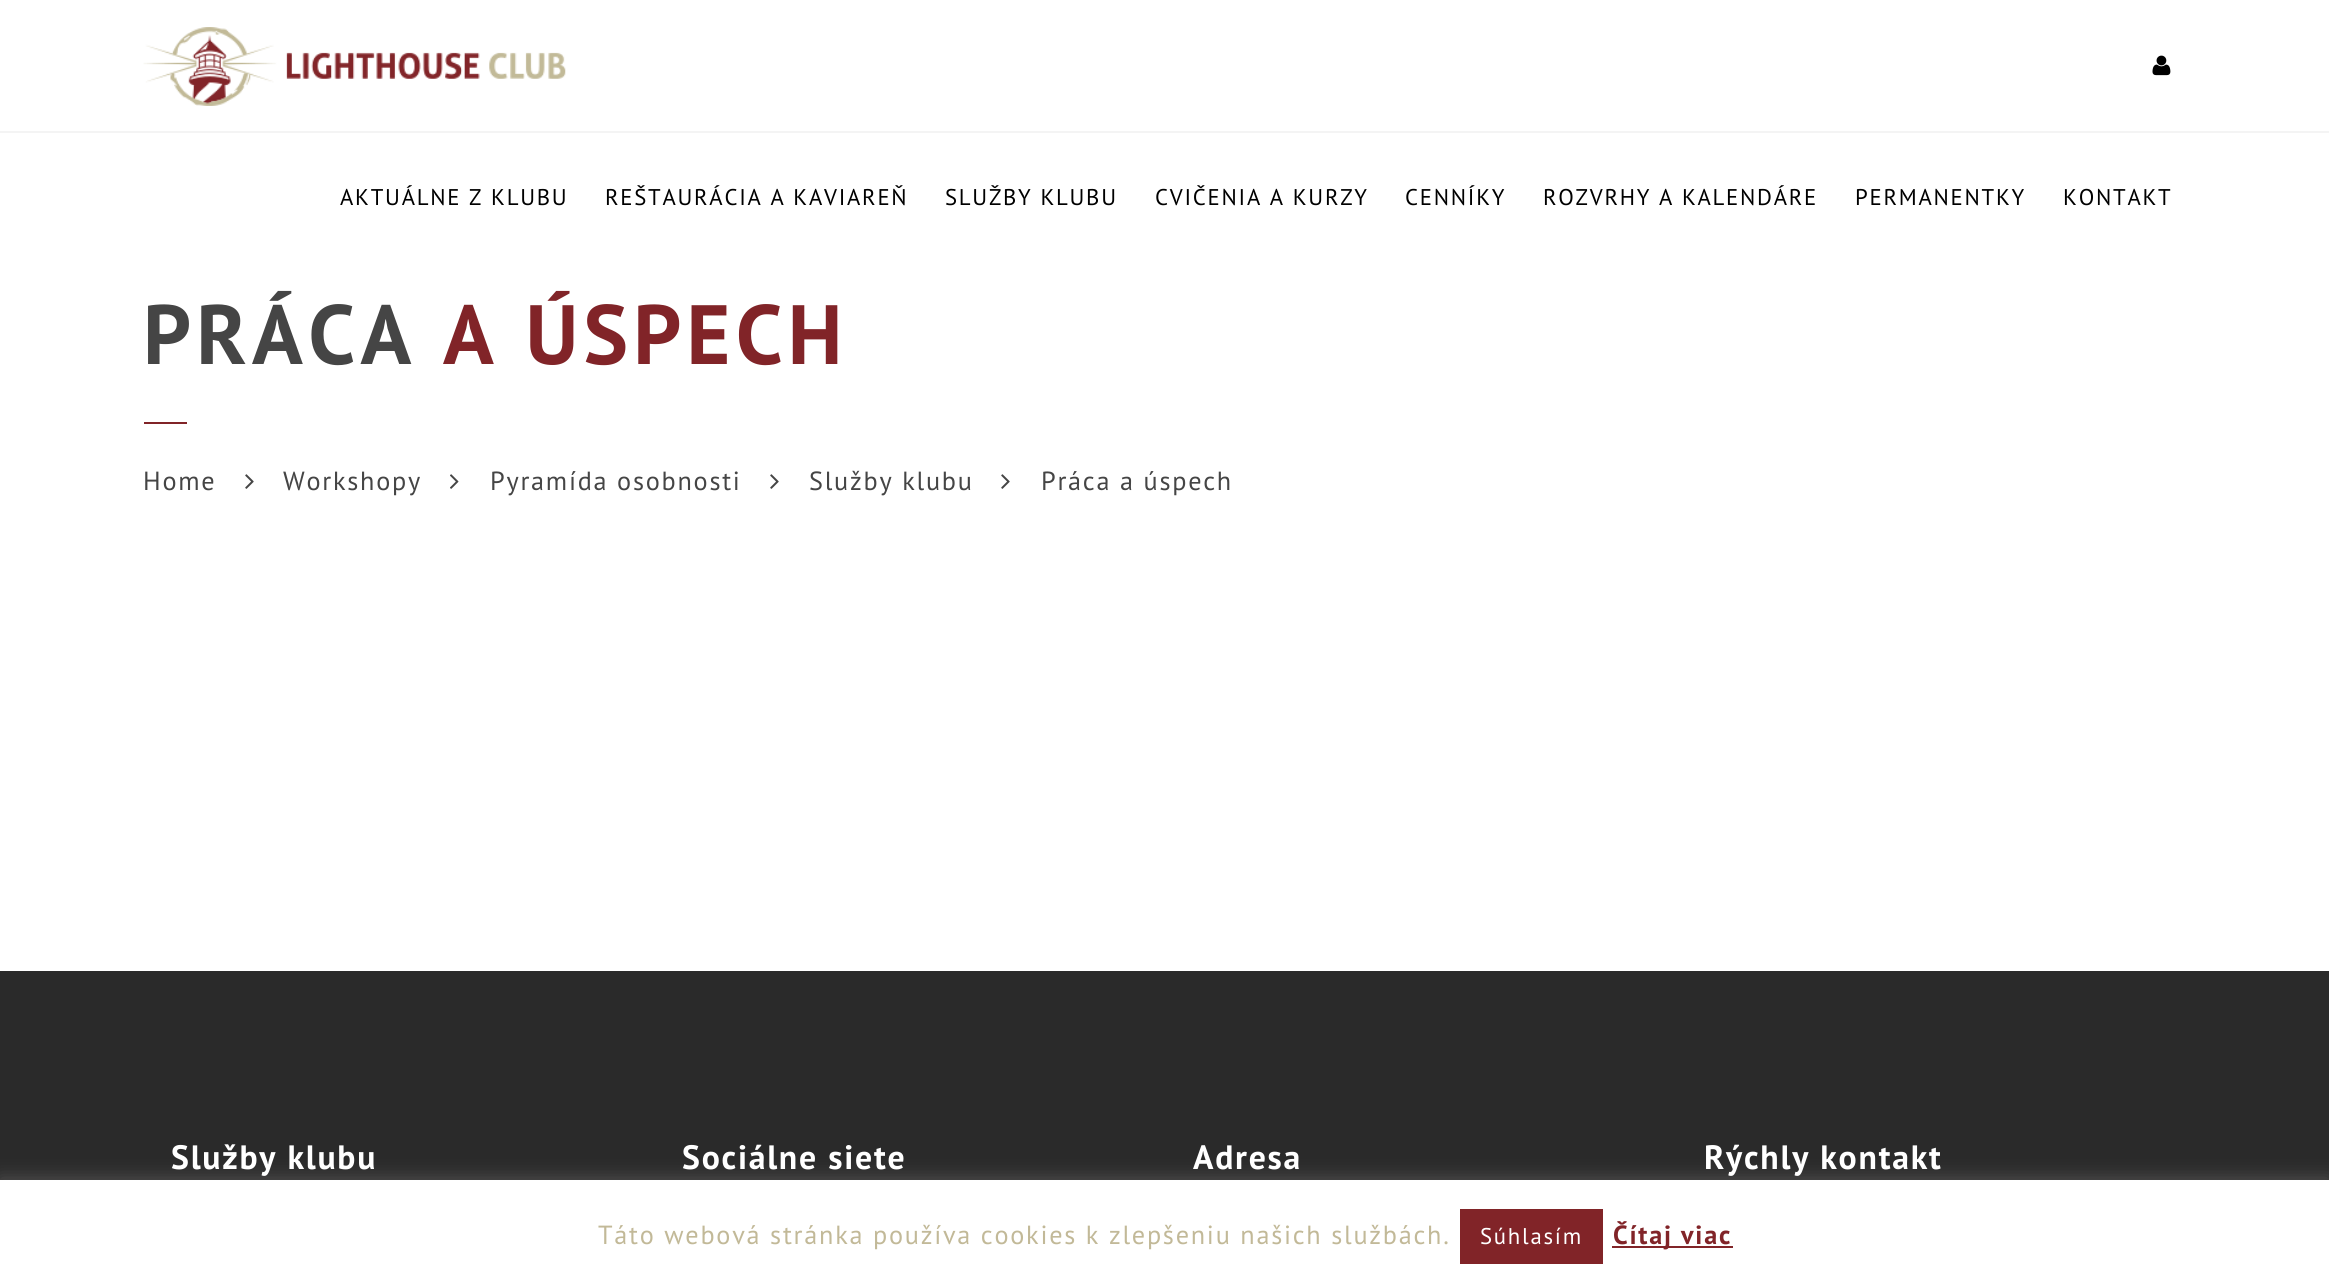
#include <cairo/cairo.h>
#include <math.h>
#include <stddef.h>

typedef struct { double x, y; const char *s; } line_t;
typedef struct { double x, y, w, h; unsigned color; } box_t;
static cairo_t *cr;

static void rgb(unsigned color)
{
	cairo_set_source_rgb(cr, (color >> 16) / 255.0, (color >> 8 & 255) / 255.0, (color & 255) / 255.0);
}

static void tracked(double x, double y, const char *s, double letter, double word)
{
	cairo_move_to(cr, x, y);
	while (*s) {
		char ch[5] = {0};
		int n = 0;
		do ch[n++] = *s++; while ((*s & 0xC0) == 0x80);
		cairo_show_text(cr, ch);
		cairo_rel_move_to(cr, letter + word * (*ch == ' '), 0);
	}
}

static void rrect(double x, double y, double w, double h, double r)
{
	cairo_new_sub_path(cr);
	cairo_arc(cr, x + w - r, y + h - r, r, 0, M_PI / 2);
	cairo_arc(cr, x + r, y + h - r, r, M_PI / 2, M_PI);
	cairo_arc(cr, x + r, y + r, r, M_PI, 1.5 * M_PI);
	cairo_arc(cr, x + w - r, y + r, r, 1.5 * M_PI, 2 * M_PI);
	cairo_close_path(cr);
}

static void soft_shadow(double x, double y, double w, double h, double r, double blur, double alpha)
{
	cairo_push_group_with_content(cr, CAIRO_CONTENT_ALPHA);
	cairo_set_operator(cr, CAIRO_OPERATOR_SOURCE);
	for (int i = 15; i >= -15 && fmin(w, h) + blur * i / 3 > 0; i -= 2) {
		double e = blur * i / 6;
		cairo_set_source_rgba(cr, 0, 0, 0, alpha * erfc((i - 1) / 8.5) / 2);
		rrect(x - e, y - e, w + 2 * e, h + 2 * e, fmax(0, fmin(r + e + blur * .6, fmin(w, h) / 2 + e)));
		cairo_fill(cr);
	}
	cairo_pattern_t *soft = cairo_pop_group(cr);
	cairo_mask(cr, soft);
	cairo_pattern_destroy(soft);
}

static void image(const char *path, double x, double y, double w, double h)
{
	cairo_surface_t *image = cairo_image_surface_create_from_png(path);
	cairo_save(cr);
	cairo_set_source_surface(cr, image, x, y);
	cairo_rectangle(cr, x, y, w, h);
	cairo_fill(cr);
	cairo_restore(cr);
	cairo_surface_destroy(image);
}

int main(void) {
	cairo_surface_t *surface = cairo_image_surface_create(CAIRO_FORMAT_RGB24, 2329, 1283);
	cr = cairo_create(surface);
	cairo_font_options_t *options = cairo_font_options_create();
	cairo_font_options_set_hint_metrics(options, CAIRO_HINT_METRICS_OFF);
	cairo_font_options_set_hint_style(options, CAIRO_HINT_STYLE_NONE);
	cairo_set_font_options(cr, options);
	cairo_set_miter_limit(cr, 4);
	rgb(0xffffff);
	cairo_paint(cr);
	cairo_rectangle(cr, -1, -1, 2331, 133);
	rgb(0xf4f4f4);
	cairo_stroke(cr);
	image("img/1.png", 143, 27, 423, 79);
	image("img/2.png", 2152, 55, 19, 21);
	rgb(0x812428);
	cairo_rectangle(cr, 144, 422, 43, 2);
	cairo_fill(cr);
	image("img/3.png", 245, 474, 9, 15);
	image("img/4.png", 450, 474, 9, 15);
	image("img/3.png", 770, 474, 9, 15);
	image("img/3.png", 1001, 474, 9, 15);
	rgb(0x2a2a2a);
	cairo_rectangle(cr, 0, 971, 2329, 209);
	cairo_fill(cr);
	rgb(0xacabab);
	soft_shadow(0, 1178, 2329, 105, 0, 9, 0.3);
	{
		static const box_t items[] = {
			{0, 1180, 2329, 103, 0xffffff},
			{1460, 1209, 143, 55, 0x812428},
			{1612, 1246, 121, 2, 0x812428},
		};
		for (size_t i = 0; i < sizeof items / sizeof *items; i++) {
			rgb(items[i].color);
			cairo_rectangle(cr, items[i].x, items[i].y, items[i].w, items[i].h);
			cairo_fill(cr);
		}
	}
	cairo_select_font_face(cr, "PT Sans", CAIRO_FONT_SLANT_NORMAL, CAIRO_FONT_WEIGHT_NORMAL);
	cairo_set_font_size(cr, 22.75);
	rgb(0x000000);
	{
		static const line_t items[] = {
			{340, 205, "AKTUÁLNE Z KLUBU"},
			{605, 205, "REŠTAURÁCIA A KAVIAREŇ"},
			{945, 205, "SLUŽBY KLUBU"},
			{1155, 205, "CVIČENIA A KURZY"},
			{1405, 205, "CENNÍKY"},
			{1543, 205, "ROZVRHY A KALENDÁRE"},
			{1855, 205, "PERMANENTKY"},
			{2063, 205, "KONTAKT"},
		};
		for (size_t i = 0; i < sizeof items / sizeof *items; i++) {
			tracked(items[i].x, items[i].y, items[i].s, 1.75, 0);
		}
	}
	cairo_select_font_face(cr, "PT Sans", CAIRO_FONT_SLANT_NORMAL, CAIRO_FONT_WEIGHT_BOLD);
	cairo_set_font_size(cr, 84);
	rgb(0x454545);
	tracked(143, 364, "PRÁCA", 5.25, 0);
	rgb(0x812428);
	tracked(443, 364, "A ÚSPECH", 5.25, 0);
	cairo_select_font_face(cr, "PT Sans", CAIRO_FONT_SLANT_NORMAL, CAIRO_FONT_WEIGHT_NORMAL);
	cairo_set_font_size(cr, 26.25);
	rgb(0x454545);
	{
		static const line_t items[] = {
			{143, 490, "Home"},
			{283, 490, "Workshopy"},
			{490, 490, "Pyramída osobnosti"},
			{809, 490, "Služby klubu"},
			{1041, 490, "Práca a úspech"},
		};
		for (size_t i = 0; i < sizeof items / sizeof *items; i++) {
			tracked(items[i].x, items[i].y, items[i].s, 1.75, 0);
		}
	}
	cairo_select_font_face(cr, "PT Sans", CAIRO_FONT_SLANT_NORMAL, CAIRO_FONT_WEIGHT_BOLD);
	cairo_set_font_size(cr, 33.75);
	rgb(0xffffff);
	{
		static const line_t items[] = {
			{171, 1169, "Služby klubu"},
			{682, 1169, "Sociálne siete"},
			{1193, 1169, "Adresa"},
			{1704, 1169, "Rýchly kontakt"},
		};
		for (size_t i = 0; i < sizeof items / sizeof *items; i++) {
			tracked(items[i].x, items[i].y, items[i].s, 1.75, 0);
		}
	}
	cairo_select_font_face(cr, "PT Sans", CAIRO_FONT_SLANT_NORMAL, CAIRO_FONT_WEIGHT_NORMAL);
	cairo_set_font_size(cr, 26.25);
	rgb(0xc2b998);
	tracked(598, 1244, "Táto webová stránka používa cookies k zlepšeniu našich službách.", 1.75, 0);
	cairo_set_font_size(cr, 22.75);
	rgb(0xffffff);
	tracked(1480, 1244, "Súhlasím", 1.75, 0);
	cairo_select_font_face(cr, "PT Sans", CAIRO_FONT_SLANT_NORMAL, CAIRO_FONT_WEIGHT_BOLD);
	cairo_set_font_size(cr, 26.25);
	rgb(0x812428);
	tracked(1613, 1244, "Čítaj viac", 1.75, 0);
	cairo_surface_write_to_png(surface, "page.png");
	cairo_font_options_destroy(options);
	cairo_destroy(cr);
	cairo_surface_destroy(surface);
	return 0;
}
